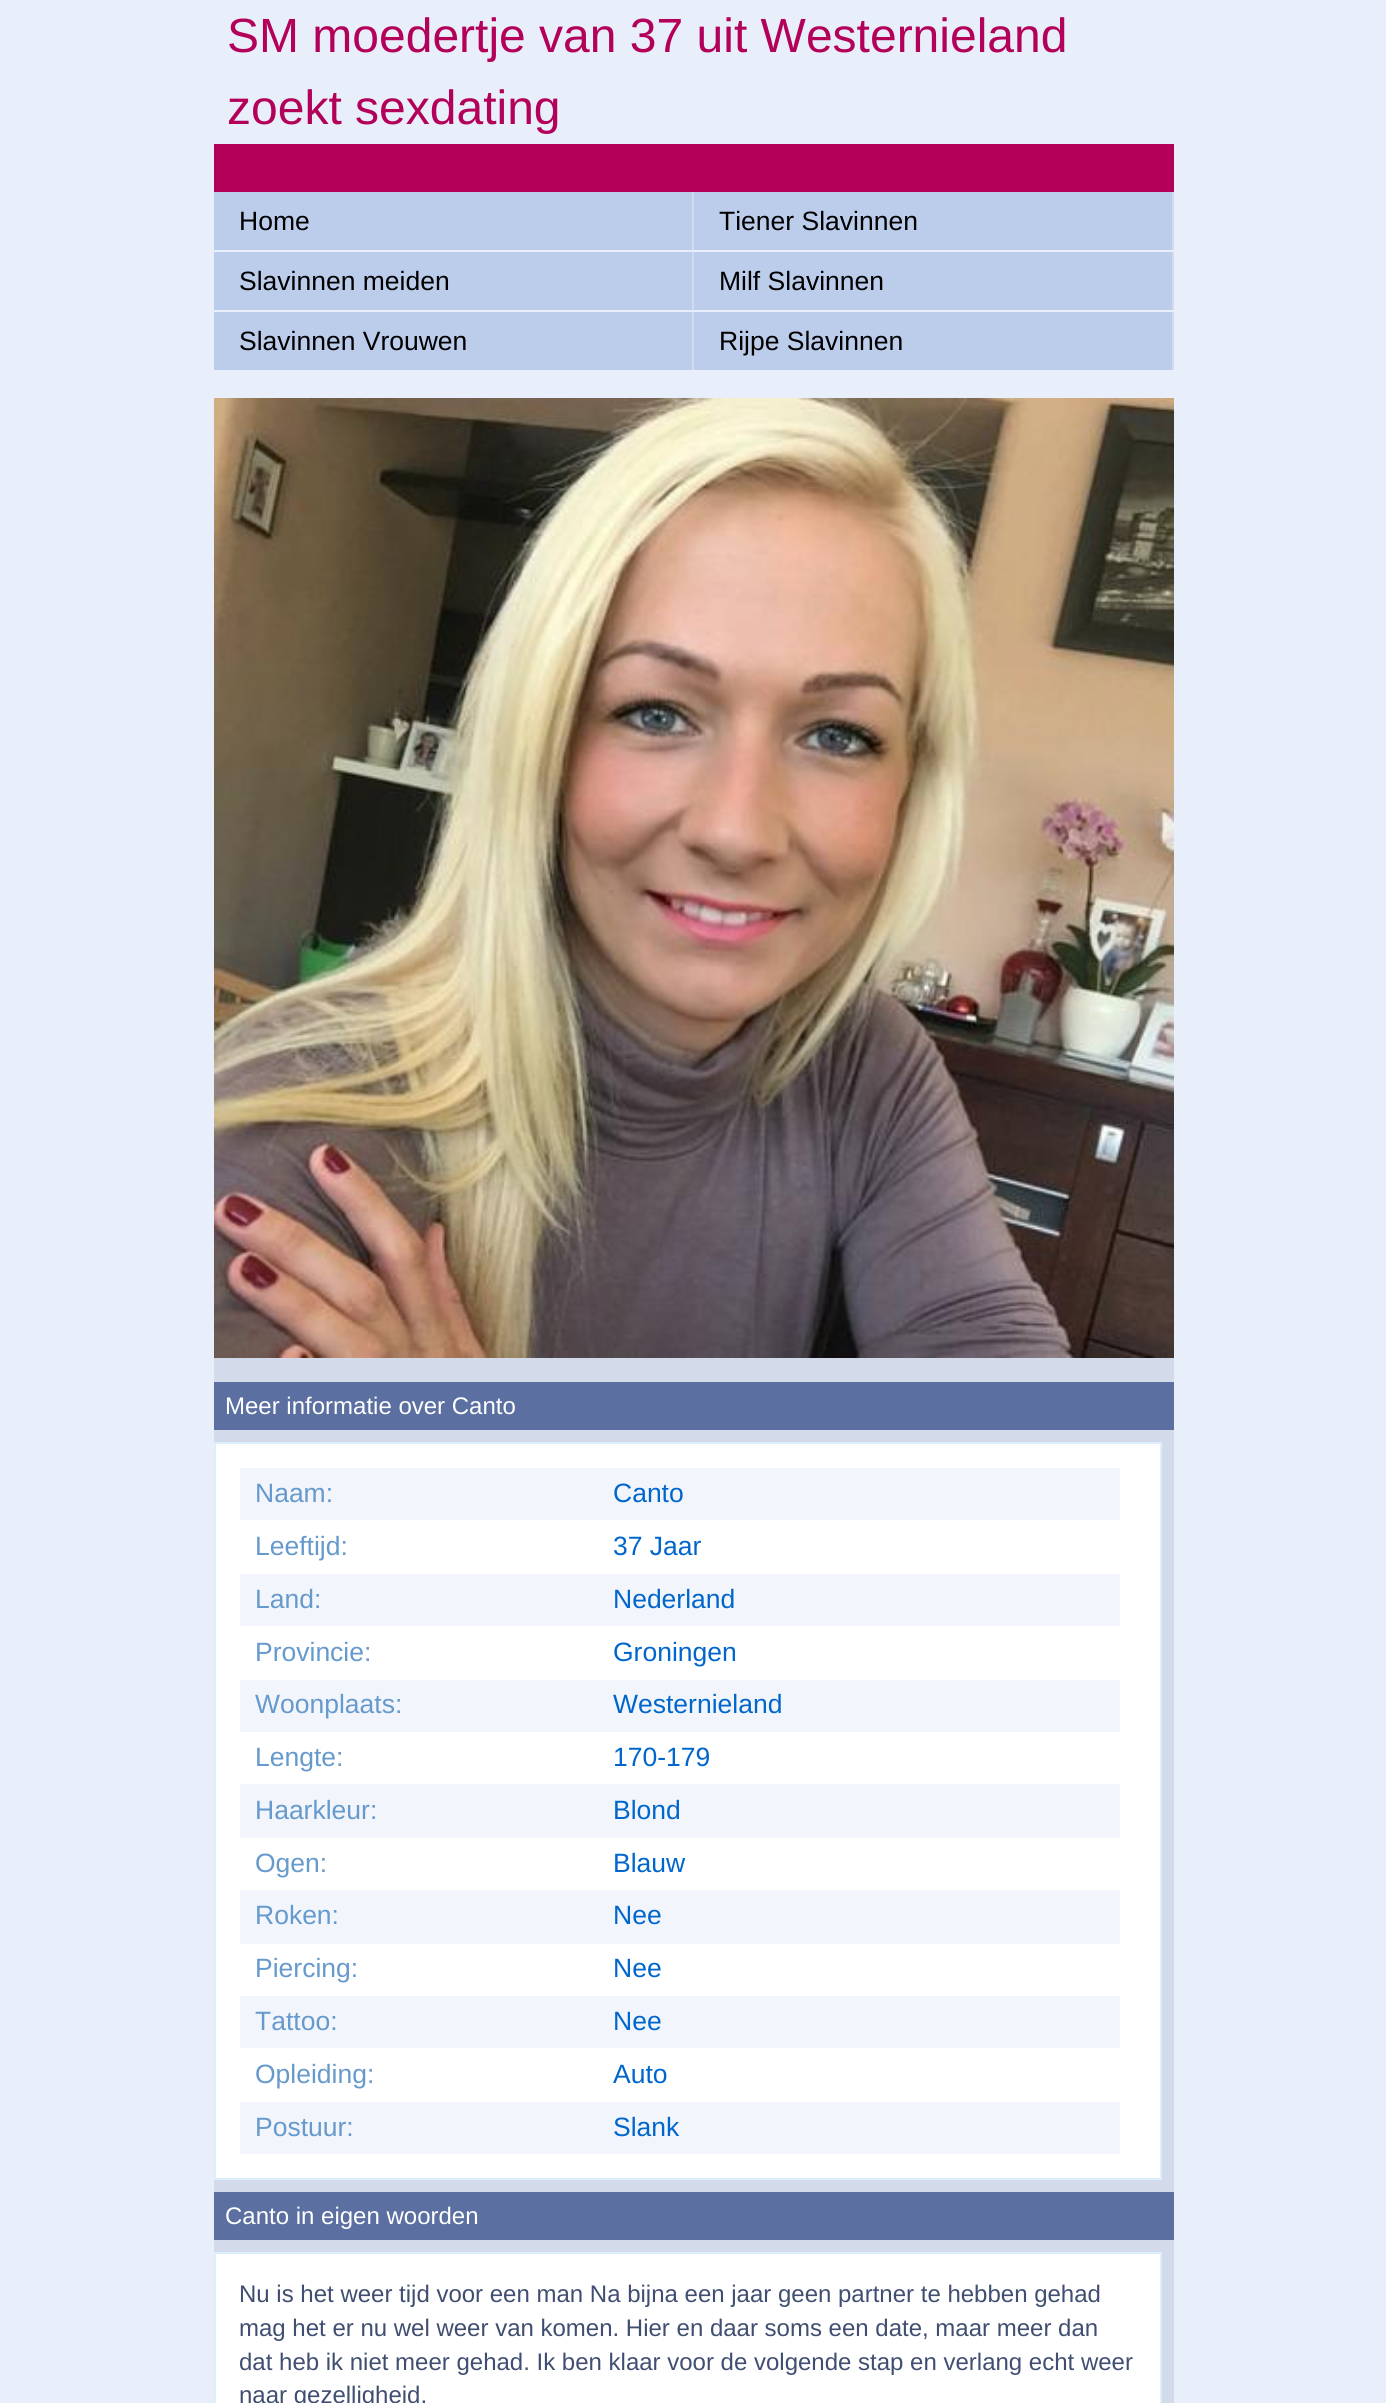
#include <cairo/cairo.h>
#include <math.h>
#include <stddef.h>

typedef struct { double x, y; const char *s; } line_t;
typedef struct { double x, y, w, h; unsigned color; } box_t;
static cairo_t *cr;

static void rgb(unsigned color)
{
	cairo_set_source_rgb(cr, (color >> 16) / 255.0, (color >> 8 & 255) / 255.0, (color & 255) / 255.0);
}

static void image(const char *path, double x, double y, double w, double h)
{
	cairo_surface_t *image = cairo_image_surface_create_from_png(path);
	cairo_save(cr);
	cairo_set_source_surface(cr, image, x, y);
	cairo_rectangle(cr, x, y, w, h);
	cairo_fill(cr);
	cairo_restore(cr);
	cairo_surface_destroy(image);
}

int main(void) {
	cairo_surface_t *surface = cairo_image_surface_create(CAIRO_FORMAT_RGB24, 1386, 2403);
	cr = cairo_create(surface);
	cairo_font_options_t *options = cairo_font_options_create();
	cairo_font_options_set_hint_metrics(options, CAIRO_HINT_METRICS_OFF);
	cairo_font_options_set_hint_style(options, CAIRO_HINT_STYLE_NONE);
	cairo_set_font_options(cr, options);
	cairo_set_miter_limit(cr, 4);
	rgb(0xe8eefa);
	cairo_paint(cr);
	{
		static const box_t items[] = {
			{214, 144, 960, 48, 0xb30059},
			{214, 192, 478, 58, 0xbccceb},
			{692, 192, 2, 58, 0xd3dbeb},
			{694, 192, 478, 58, 0xbccceb},
			{1172, 192, 2, 58, 0xd3dbeb},
			{214, 252, 478, 58, 0xbccceb},
			{692, 252, 2, 58, 0xd3dbeb},
			{694, 252, 478, 58, 0xbccceb},
			{1172, 252, 2, 58, 0xd3dbeb},
			{214, 312, 478, 58, 0xbccceb},
			{692, 312, 2, 58, 0xd3dbeb},
			{694, 312, 478, 58, 0xbccceb},
			{1172, 312, 2, 58, 0xd3dbeb},
			{214, 1358, 960, 1045, 0xd3dbeb},
		};
		for (size_t i = 0; i < sizeof items / sizeof *items; i++) {
			rgb(items[i].color);
			cairo_rectangle(cr, items[i].x, items[i].y, items[i].w, items[i].h);
			cairo_fill(cr);
		}
	}
	image("img/1.png", 214, 398, 960, 960);
	rgb(0x5b6fa1);
	cairo_rectangle(cr, 214, 1382, 960, 48);
	cairo_fill(cr);
	rgb(0xffffff);
	cairo_rectangle(cr, 215, 1443, 946, 736);
	cairo_fill_preserve(cr);
	rgb(0xddeeff);
	cairo_stroke(cr);
	{
		static const box_t items[] = {
			{240, 1468, 880, 52, 0xf2f6fc},
			{240, 1574, 880, 52, 0xf2f6fc},
			{240, 1680, 880, 52, 0xf2f6fc},
			{240, 1784, 880, 54, 0xf2f6fc},
			{240, 1890, 880, 54, 0xf2f6fc},
			{240, 1996, 880, 52, 0xf2f6fc},
			{240, 2102, 880, 52, 0xf2f6fc},
			{214, 2192, 960, 48, 0x5b6fa1},
		};
		for (size_t i = 0; i < sizeof items / sizeof *items; i++) {
			rgb(items[i].color);
			cairo_rectangle(cr, items[i].x, items[i].y, items[i].w, items[i].h);
			cairo_fill(cr);
		}
	}
	rgb(0xffffff);
	cairo_rectangle(cr, 215, 2253, 946, 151);
	cairo_fill_preserve(cr);
	rgb(0xddeeff);
	cairo_stroke(cr);
	cairo_select_font_face(cr, "Liberation Sans", CAIRO_FONT_SLANT_NORMAL, CAIRO_FONT_WEIGHT_NORMAL);
	cairo_set_font_size(cr, 48);
	rgb(0xb30059);
	cairo_move_to(cr, 227, 52);
	cairo_show_text(cr, "SM moedertje van 37 uit Westernieland");
	cairo_move_to(cr, 227, 124);
	cairo_show_text(cr, "zoekt sexdating");
	cairo_set_font_size(cr, 26.5);
	rgb(0x000000);
	{
		static const line_t items[] = {
			{239, 230, "Home"},
			{719, 230, "Tiener Slavinnen"},
			{239, 290, "Slavinnen meiden"},
			{719, 290, "Milf Slavinnen"},
			{239, 350, "Slavinnen Vrouwen"},
			{719, 350, "Rijpe Slavinnen"},
		};
		for (size_t i = 0; i < sizeof items / sizeof *items; i++) {
			cairo_move_to(cr, items[i].x, items[i].y);
			cairo_show_text(cr, items[i].s);
		}
	}
	cairo_set_font_size(cr, 24);
	rgb(0xffffff);
	cairo_move_to(cr, 225, 1414);
	cairo_show_text(cr, "Meer informatie over Canto");
	cairo_set_font_size(cr, 26.5);
	rgb(0x6699cc);
	cairo_move_to(cr, 255, 1502);
	cairo_show_text(cr, "Naam:");
	rgb(0x0066cc);
	cairo_move_to(cr, 613, 1502);
	cairo_show_text(cr, "Canto");
	rgb(0x6699cc);
	cairo_move_to(cr, 255, 1555);
	cairo_show_text(cr, "Leeftijd:");
	rgb(0x0066cc);
	cairo_move_to(cr, 613, 1555);
	cairo_show_text(cr, "37 Jaar");
	rgb(0x6699cc);
	cairo_move_to(cr, 255, 1608);
	cairo_show_text(cr, "Land:");
	rgb(0x0066cc);
	cairo_move_to(cr, 613, 1608);
	cairo_show_text(cr, "Nederland");
	rgb(0x6699cc);
	cairo_move_to(cr, 255, 1661);
	cairo_show_text(cr, "Provincie:");
	rgb(0x0066cc);
	cairo_move_to(cr, 613, 1661);
	cairo_show_text(cr, "Groningen");
	rgb(0x6699cc);
	cairo_move_to(cr, 255, 1713);
	cairo_show_text(cr, "Woonplaats:");
	rgb(0x0066cc);
	cairo_move_to(cr, 613, 1713);
	cairo_show_text(cr, "Westernieland");
	rgb(0x6699cc);
	cairo_move_to(cr, 255, 1766);
	cairo_show_text(cr, "Lengte:");
	rgb(0x0066cc);
	cairo_move_to(cr, 613, 1766);
	cairo_show_text(cr, "170-179");
	rgb(0x6699cc);
	cairo_move_to(cr, 255, 1819);
	cairo_show_text(cr, "Haarkleur:");
	rgb(0x0066cc);
	cairo_move_to(cr, 613, 1819);
	cairo_show_text(cr, "Blond");
	rgb(0x6699cc);
	cairo_move_to(cr, 255, 1872);
	cairo_show_text(cr, "Ogen:");
	rgb(0x0066cc);
	cairo_move_to(cr, 613, 1872);
	cairo_show_text(cr, "Blauw");
	rgb(0x6699cc);
	cairo_move_to(cr, 255, 1924);
	cairo_show_text(cr, "Roken:");
	rgb(0x0066cc);
	cairo_move_to(cr, 613, 1924);
	cairo_show_text(cr, "Nee");
	rgb(0x6699cc);
	cairo_move_to(cr, 255, 1977);
	cairo_show_text(cr, "Piercing:");
	rgb(0x0066cc);
	cairo_move_to(cr, 613, 1977);
	cairo_show_text(cr, "Nee");
	rgb(0x6699cc);
	cairo_move_to(cr, 255, 2030);
	cairo_show_text(cr, "Tattoo:");
	rgb(0x0066cc);
	cairo_move_to(cr, 613, 2030);
	cairo_show_text(cr, "Nee");
	rgb(0x6699cc);
	cairo_move_to(cr, 255, 2083);
	cairo_show_text(cr, "Opleiding:");
	rgb(0x0066cc);
	cairo_move_to(cr, 613, 2083);
	cairo_show_text(cr, "Auto");
	rgb(0x6699cc);
	cairo_move_to(cr, 255, 2136);
	cairo_show_text(cr, "Postuur:");
	rgb(0x0066cc);
	cairo_move_to(cr, 613, 2136);
	cairo_show_text(cr, "Slank");
	cairo_set_font_size(cr, 24);
	rgb(0xffffff);
	cairo_move_to(cr, 225, 2224);
	cairo_show_text(cr, "Canto in eigen woorden");
	rgb(0x404e71);
	{
		static const line_t items[] = {
			{239, 2302, "Nu is het weer tijd voor een man Na bijna een jaar geen partner te hebben gehad"},
			{239, 2336, "mag het er nu wel weer van komen. Hier en daar soms een date, maar meer dan"},
			{239, 2370, "dat heb ik niet meer gehad. Ik ben klaar voor de volgende stap en verlang echt weer"},
			{239, 2403, "naar gezelligheid."},
		};
		for (size_t i = 0; i < sizeof items / sizeof *items; i++) {
			cairo_move_to(cr, items[i].x, items[i].y);
			cairo_show_text(cr, items[i].s);
		}
	}
	cairo_surface_write_to_png(surface, "page.png");
	cairo_font_options_destroy(options);
	cairo_destroy(cr);
	cairo_surface_destroy(surface);
	return 0;
}
